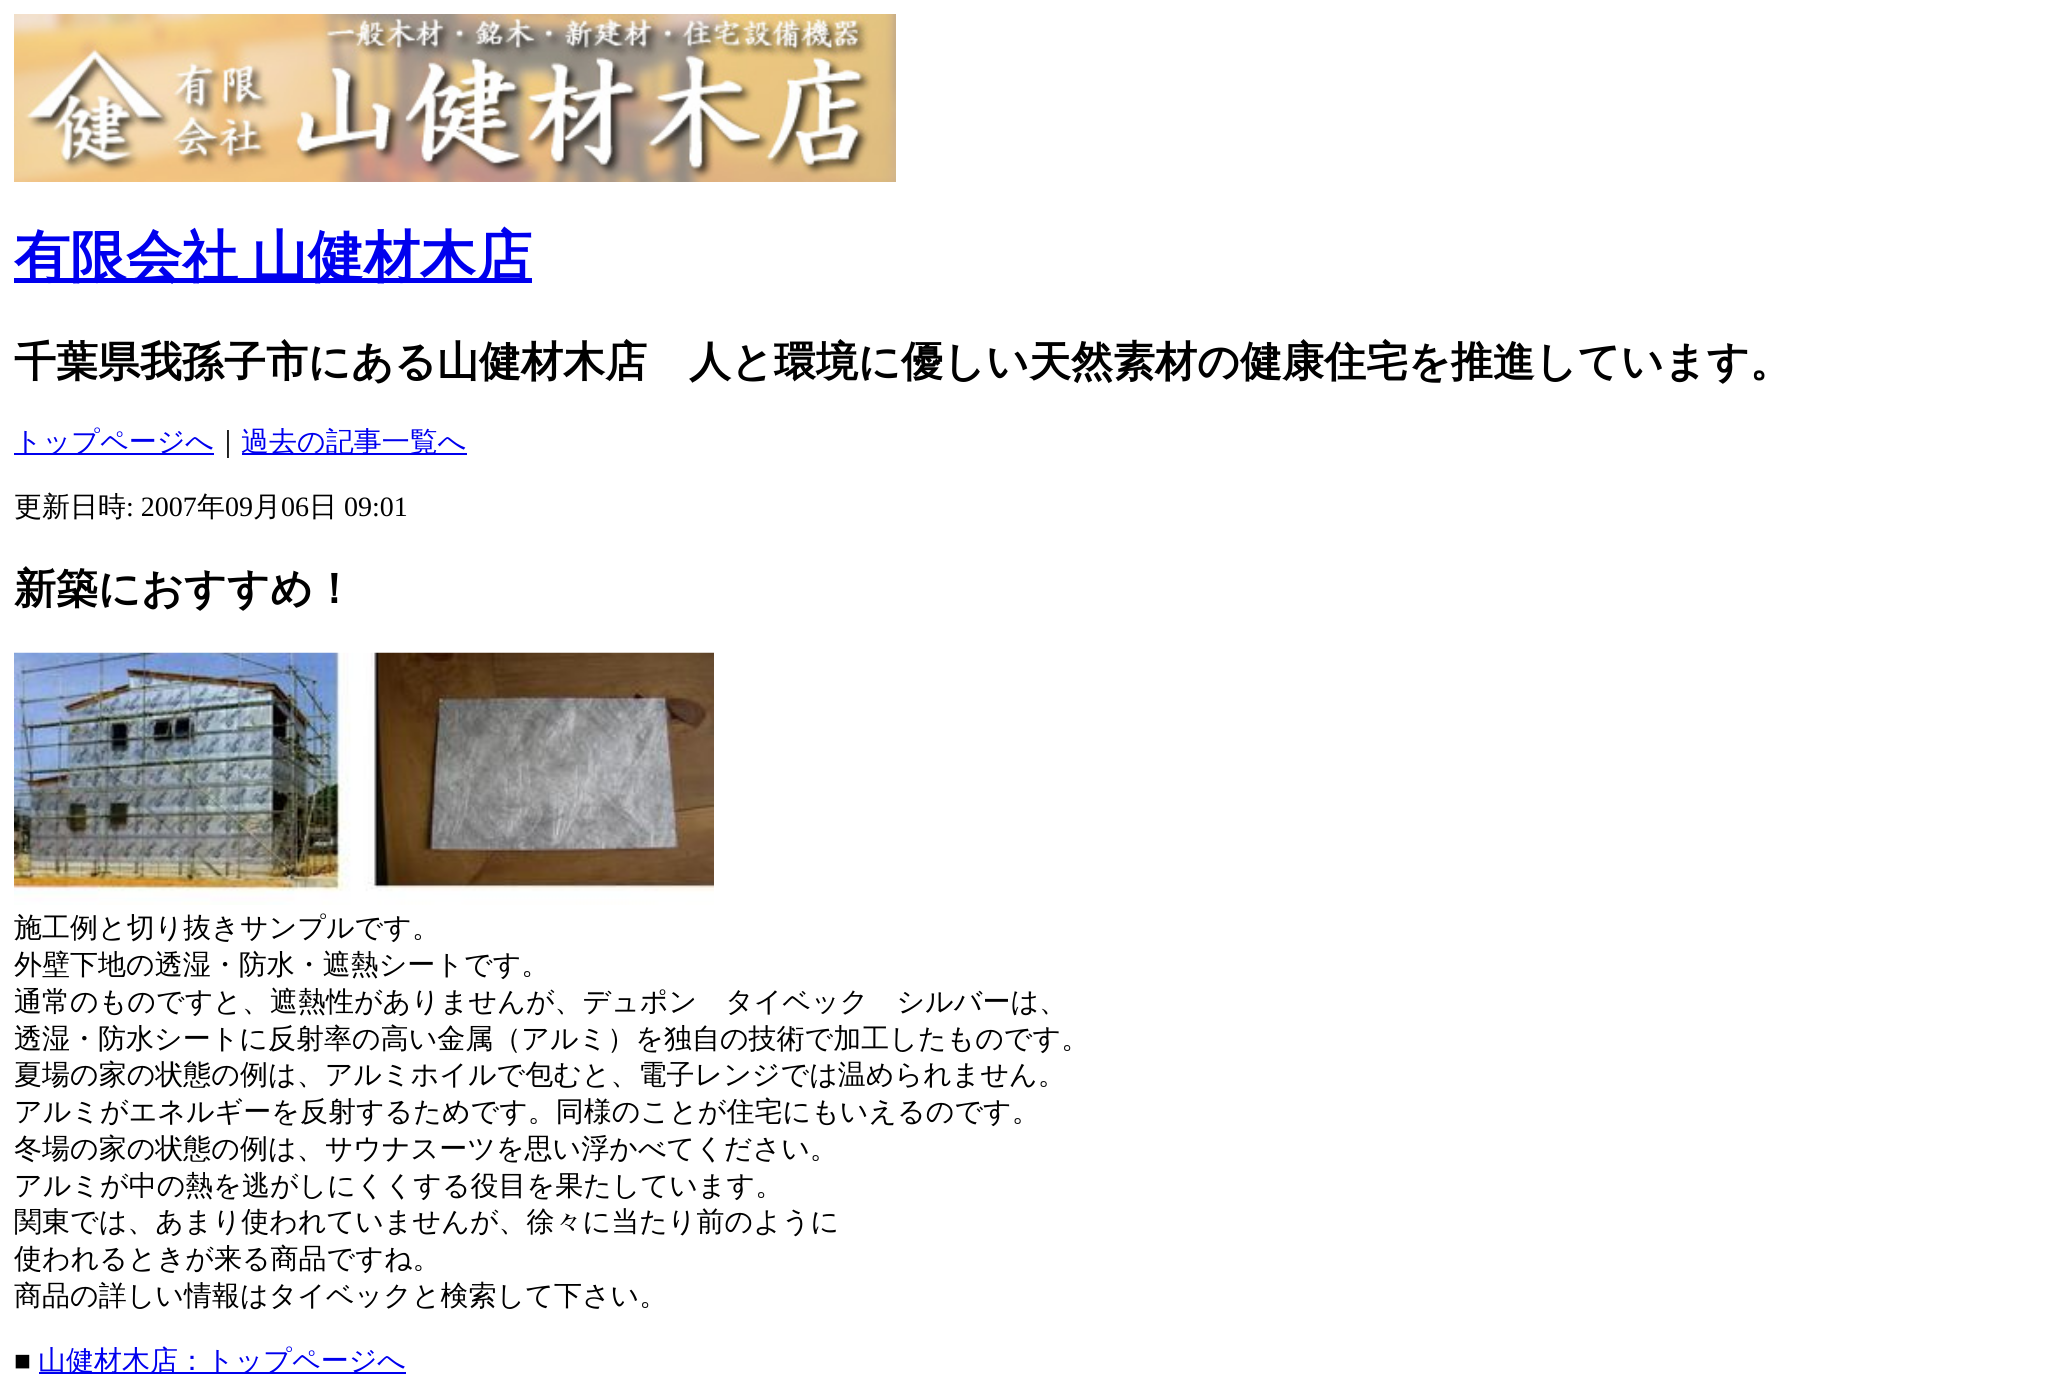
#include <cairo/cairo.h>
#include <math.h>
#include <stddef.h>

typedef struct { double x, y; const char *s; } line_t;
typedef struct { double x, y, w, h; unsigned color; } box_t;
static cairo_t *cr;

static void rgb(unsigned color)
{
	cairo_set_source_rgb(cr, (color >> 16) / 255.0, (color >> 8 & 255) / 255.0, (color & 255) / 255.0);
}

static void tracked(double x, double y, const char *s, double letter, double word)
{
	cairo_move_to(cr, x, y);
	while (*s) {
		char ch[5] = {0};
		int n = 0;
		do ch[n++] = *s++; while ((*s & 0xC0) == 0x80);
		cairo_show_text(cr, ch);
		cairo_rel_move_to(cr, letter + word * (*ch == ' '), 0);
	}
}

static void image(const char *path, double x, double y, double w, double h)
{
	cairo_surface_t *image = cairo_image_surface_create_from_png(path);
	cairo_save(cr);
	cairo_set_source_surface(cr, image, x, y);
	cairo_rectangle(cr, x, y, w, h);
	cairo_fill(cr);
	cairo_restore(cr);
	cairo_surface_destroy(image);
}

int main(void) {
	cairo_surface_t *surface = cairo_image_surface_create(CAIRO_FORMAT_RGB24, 2052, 1397);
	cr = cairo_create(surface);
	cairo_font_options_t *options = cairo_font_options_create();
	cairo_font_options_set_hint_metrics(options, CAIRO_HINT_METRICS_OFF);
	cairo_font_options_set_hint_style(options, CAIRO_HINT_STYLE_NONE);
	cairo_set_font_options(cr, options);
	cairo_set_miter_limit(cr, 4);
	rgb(0xffffff);
	cairo_paint(cr);
	image("img/1.png", 14, 14, 882, 168);
	{
		static const box_t items[] = {
			{14, 278, 518, 5, 0x0000ee},
			{14, 453, 200, 2, 0x0000ee},
			{242, 453, 225, 2, 0x0000ee},
		};
		for (size_t i = 0; i < sizeof items / sizeof *items; i++) {
			rgb(items[i].color);
			cairo_rectangle(cr, items[i].x, items[i].y, items[i].w, items[i].h);
			cairo_fill(cr);
		}
	}
	image("img/2.png", 14, 652, 700, 253);
	cairo_rectangle(cr, 39, 1372, 367, 2);
	cairo_fill(cr);
	cairo_select_font_face(cr, "WenQuanYi Zen Hei", CAIRO_FONT_SLANT_NORMAL, CAIRO_FONT_WEIGHT_BOLD);
	cairo_set_font_size(cr, 56);
	tracked(14, 276, "有限会社 山健材木店", 0, -3);
	cairo_set_font_size(cr, 42);
	rgb(0x000000);
	cairo_move_to(cr, 14, 376);
	cairo_show_text(cr, "千葉県我孫子市にある山健材木店　人と環境に優しい天然素材の健康住宅を推進しています。");
	cairo_select_font_face(cr, "WenQuanYi Zen Hei Medium", CAIRO_FONT_SLANT_NORMAL, CAIRO_FONT_WEIGHT_NORMAL);
	cairo_set_font_size(cr, 28);
	rgb(0x0000ee);
	cairo_move_to(cr, 14, 451);
	cairo_show_text(cr, "トップページへ");
	rgb(0x000000);
	cairo_move_to(cr, 214, 451);
	cairo_show_text(cr, "｜");
	rgb(0x0000ee);
	cairo_move_to(cr, 241, 451);
	cairo_show_text(cr, "過去の記事一覧へ");
	rgb(0x000000);
	cairo_move_to(cr, 14, 516);
	cairo_show_text(cr, "更新日時");
	cairo_select_font_face(cr, "Liberation Serif", CAIRO_FONT_SLANT_NORMAL, CAIRO_FONT_WEIGHT_NORMAL);
	cairo_move_to(cr, 126, 516);
	cairo_show_text(cr, ": 2007");
	cairo_select_font_face(cr, "WenQuanYi Zen Hei Medium", CAIRO_FONT_SLANT_NORMAL, CAIRO_FONT_WEIGHT_NORMAL);
	cairo_move_to(cr, 197, 516);
	cairo_show_text(cr, "年");
	cairo_select_font_face(cr, "Liberation Serif", CAIRO_FONT_SLANT_NORMAL, CAIRO_FONT_WEIGHT_NORMAL);
	cairo_move_to(cr, 225, 516);
	cairo_show_text(cr, "09");
	cairo_select_font_face(cr, "WenQuanYi Zen Hei Medium", CAIRO_FONT_SLANT_NORMAL, CAIRO_FONT_WEIGHT_NORMAL);
	cairo_move_to(cr, 253, 516);
	cairo_show_text(cr, "月");
	cairo_select_font_face(cr, "Liberation Serif", CAIRO_FONT_SLANT_NORMAL, CAIRO_FONT_WEIGHT_NORMAL);
	cairo_move_to(cr, 281, 516);
	cairo_show_text(cr, "06");
	cairo_select_font_face(cr, "WenQuanYi Zen Hei Medium", CAIRO_FONT_SLANT_NORMAL, CAIRO_FONT_WEIGHT_NORMAL);
	cairo_move_to(cr, 309, 516);
	cairo_show_text(cr, "日");
	cairo_select_font_face(cr, "Liberation Serif", CAIRO_FONT_SLANT_NORMAL, CAIRO_FONT_WEIGHT_NORMAL);
	cairo_move_to(cr, 344, 516);
	cairo_show_text(cr, "09:01");
	cairo_select_font_face(cr, "WenQuanYi Zen Hei", CAIRO_FONT_SLANT_NORMAL, CAIRO_FONT_WEIGHT_BOLD);
	cairo_set_font_size(cr, 42);
	cairo_move_to(cr, 14, 603);
	cairo_show_text(cr, "新築におすすめ！");
	cairo_select_font_face(cr, "WenQuanYi Zen Hei Medium", CAIRO_FONT_SLANT_NORMAL, CAIRO_FONT_WEIGHT_NORMAL);
	cairo_set_font_size(cr, 28);
	{
		static const line_t items[] = {
			{14, 937, "施工例と切り抜きサンプルです。"},
			{14, 974, "外壁下地の透湿・防水・遮熱シートです。"},
			{14, 1011, "通常のものですと、遮熱性がありませんが、デュポン　タイベック　シルバーは、"},
			{14, 1048, "透湿・防水シートに反射率の高い金属（アルミ）を独自の技術で加工したものです。"},
			{14, 1084, "夏場の家の状態の例は、アルミホイルで包むと、電子レンジでは温められません。"},
			{14, 1121, "アルミがエネルギーを反射するためです。同様のことが住宅にもいえるのです。"},
			{14, 1158, "冬場の家の状態の例は、サウナスーツを思い浮かべてください。"},
			{14, 1195, "アルミが中の熱を逃がしにくくする役目を果たしています。"},
			{14, 1231, "関東では、あまり使われていませんが、徐々に当たり前のように"},
			{14, 1268, "使われるときが来る商品ですね。"},
			{14, 1305, "商品の詳しい情報はタイベックと検索して下さい。"},
		};
		for (size_t i = 0; i < sizeof items / sizeof *items; i++) {
			cairo_move_to(cr, items[i].x, items[i].y);
			cairo_show_text(cr, items[i].s);
		}
	}
	cairo_select_font_face(cr, "Liberation Serif", CAIRO_FONT_SLANT_NORMAL, CAIRO_FONT_WEIGHT_NORMAL);
	cairo_move_to(cr, 14, 1370);
	cairo_show_text(cr, "■");
	cairo_select_font_face(cr, "WenQuanYi Zen Hei Medium", CAIRO_FONT_SLANT_NORMAL, CAIRO_FONT_WEIGHT_NORMAL);
	rgb(0x0000ee);
	cairo_move_to(cr, 38, 1370);
	cairo_show_text(cr, "山健材木店：トップページへ");
	cairo_surface_write_to_png(surface, "page.png");
	cairo_font_options_destroy(options);
	cairo_destroy(cr);
	cairo_surface_destroy(surface);
	return 0;
}
